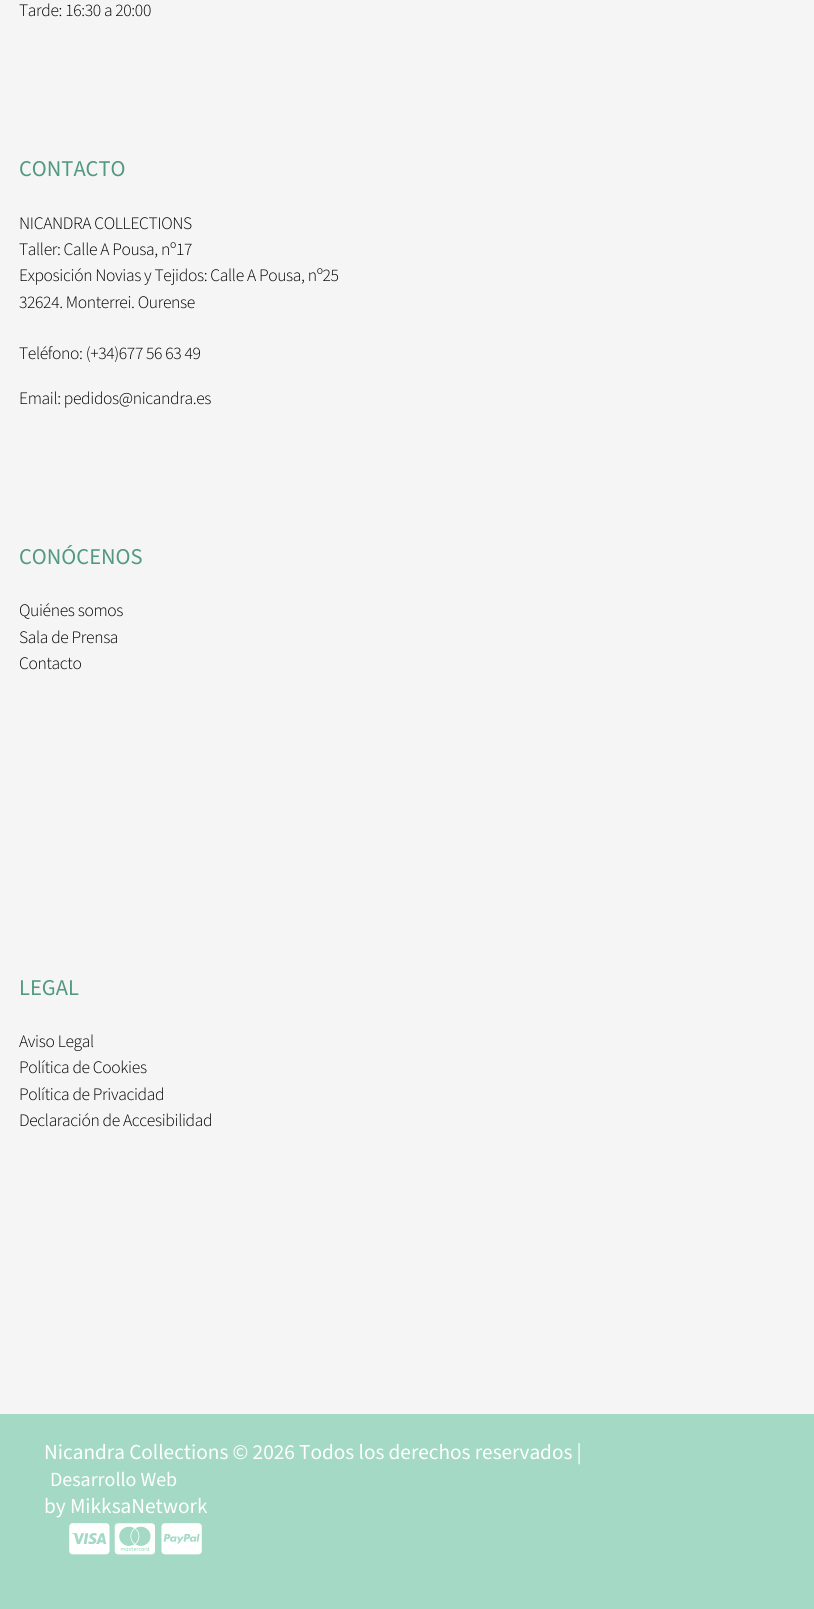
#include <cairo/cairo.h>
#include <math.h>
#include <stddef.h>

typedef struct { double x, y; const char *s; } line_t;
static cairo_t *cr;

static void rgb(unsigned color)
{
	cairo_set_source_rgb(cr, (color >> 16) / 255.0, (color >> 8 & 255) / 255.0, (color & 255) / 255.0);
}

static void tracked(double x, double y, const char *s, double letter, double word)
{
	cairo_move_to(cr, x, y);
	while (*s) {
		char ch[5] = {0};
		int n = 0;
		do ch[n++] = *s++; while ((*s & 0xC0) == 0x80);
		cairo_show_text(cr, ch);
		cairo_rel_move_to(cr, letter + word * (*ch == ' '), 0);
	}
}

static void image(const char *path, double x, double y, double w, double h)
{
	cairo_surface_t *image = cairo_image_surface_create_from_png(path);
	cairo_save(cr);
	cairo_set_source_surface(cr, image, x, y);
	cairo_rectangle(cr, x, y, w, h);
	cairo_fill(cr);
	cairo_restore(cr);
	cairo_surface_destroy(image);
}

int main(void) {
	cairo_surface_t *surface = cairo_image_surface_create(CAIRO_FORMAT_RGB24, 814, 1609);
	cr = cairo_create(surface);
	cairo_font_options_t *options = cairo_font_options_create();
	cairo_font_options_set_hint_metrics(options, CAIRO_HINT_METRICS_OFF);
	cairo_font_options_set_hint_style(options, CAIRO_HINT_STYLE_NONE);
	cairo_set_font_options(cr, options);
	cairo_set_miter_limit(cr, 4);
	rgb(0xf5f5f5);
	cairo_paint(cr);
	rgb(0xa3d9c5);
	cairo_rectangle(cr, 0, 1414, 814, 195);
	cairo_fill(cr);
	image("img/1.png", 69, 1523, 41, 32);
	image("img/2.png", 114, 1523, 41, 32);
	image("img/3.png", 161, 1523, 41, 32);
	cairo_select_font_face(cr, "Source Sans 3 Light", CAIRO_FONT_SLANT_NORMAL, CAIRO_FONT_WEIGHT_NORMAL);
	cairo_set_font_size(cr, 17.5);
	rgb(0x000000);
	tracked(19, 16, "Tarde: 16:30 a 20:00", -0.35, 0);
	cairo_select_font_face(cr, "Source Sans 3", CAIRO_FONT_SLANT_NORMAL, CAIRO_FONT_WEIGHT_NORMAL);
	cairo_set_font_size(cr, 22.5);
	rgb(0x51997f);
	cairo_move_to(cr, 19, 176);
	cairo_show_text(cr, "CONTACTO");
	cairo_select_font_face(cr, "Source Sans 3 Light", CAIRO_FONT_SLANT_NORMAL, CAIRO_FONT_WEIGHT_NORMAL);
	cairo_set_font_size(cr, 17.5);
	rgb(0x000000);
	{
		static const line_t items[] = {
			{19, 229, "NICANDRA COLLECTIONS"},
			{19, 255, "Taller: Calle A Pousa, nº17"},
			{19, 281, "Exposición Novias y Tejidos: Calle A Pousa, nº25"},
			{19, 308, "32624. Monterrei. Ourense"},
			{19, 359, "Teléfono: (+34)677 56 63 49"},
			{19, 404, "Email: pedidos@nicandra.es"},
		};
		for (size_t i = 0; i < sizeof items / sizeof *items; i++) {
			tracked(items[i].x, items[i].y, items[i].s, -0.35, 0);
		}
	}
	cairo_select_font_face(cr, "Source Sans 3", CAIRO_FONT_SLANT_NORMAL, CAIRO_FONT_WEIGHT_NORMAL);
	cairo_set_font_size(cr, 22.5);
	rgb(0x51997f);
	cairo_move_to(cr, 19, 564);
	cairo_show_text(cr, "CONÓCENOS");
	cairo_select_font_face(cr, "Source Sans 3 Light", CAIRO_FONT_SLANT_NORMAL, CAIRO_FONT_WEIGHT_NORMAL);
	cairo_set_font_size(cr, 17.5);
	rgb(0x000000);
	{
		static const line_t items[] = {
			{19, 616, "Quiénes somos"},
			{19, 643, "Sala de Prensa"},
			{19, 669, "Contacto"},
		};
		for (size_t i = 0; i < sizeof items / sizeof *items; i++) {
			tracked(items[i].x, items[i].y, items[i].s, -0.35, 0);
		}
	}
	cairo_select_font_face(cr, "Source Sans 3", CAIRO_FONT_SLANT_NORMAL, CAIRO_FONT_WEIGHT_NORMAL);
	cairo_set_font_size(cr, 22.5);
	rgb(0x51997f);
	cairo_move_to(cr, 19, 995);
	cairo_show_text(cr, "LEGAL");
	cairo_select_font_face(cr, "Source Sans 3 Light", CAIRO_FONT_SLANT_NORMAL, CAIRO_FONT_WEIGHT_NORMAL);
	cairo_set_font_size(cr, 17.5);
	rgb(0x000000);
	{
		static const line_t items[] = {
			{19, 1047, "Aviso Legal"},
			{19, 1073, "Política de Cookies"},
			{19, 1100, "Política de Privacidad"},
			{19, 1126, "Declaración de Accesibilidad"},
		};
		for (size_t i = 0; i < sizeof items / sizeof *items; i++) {
			tracked(items[i].x, items[i].y, items[i].s, -0.35, 0);
		}
	}
	cairo_select_font_face(cr, "Source Sans 3", CAIRO_FONT_SLANT_NORMAL, CAIRO_FONT_WEIGHT_NORMAL);
	cairo_set_font_size(cr, 21.25);
	rgb(0xffffff);
	cairo_move_to(cr, 44, 1459);
	cairo_show_text(cr, "Nicandra Collections © 2026 Todos los derechos reservados |");
	cairo_set_font_size(cr, 20);
	cairo_move_to(cr, 50, 1486);
	cairo_show_text(cr, "Desarrollo Web");
	cairo_set_font_size(cr, 21.25);
	cairo_move_to(cr, 44, 1513);
	cairo_show_text(cr, "by MikksaNetwork");
	cairo_surface_write_to_png(surface, "page.png");
	cairo_font_options_destroy(options);
	cairo_destroy(cr);
	cairo_surface_destroy(surface);
	return 0;
}
